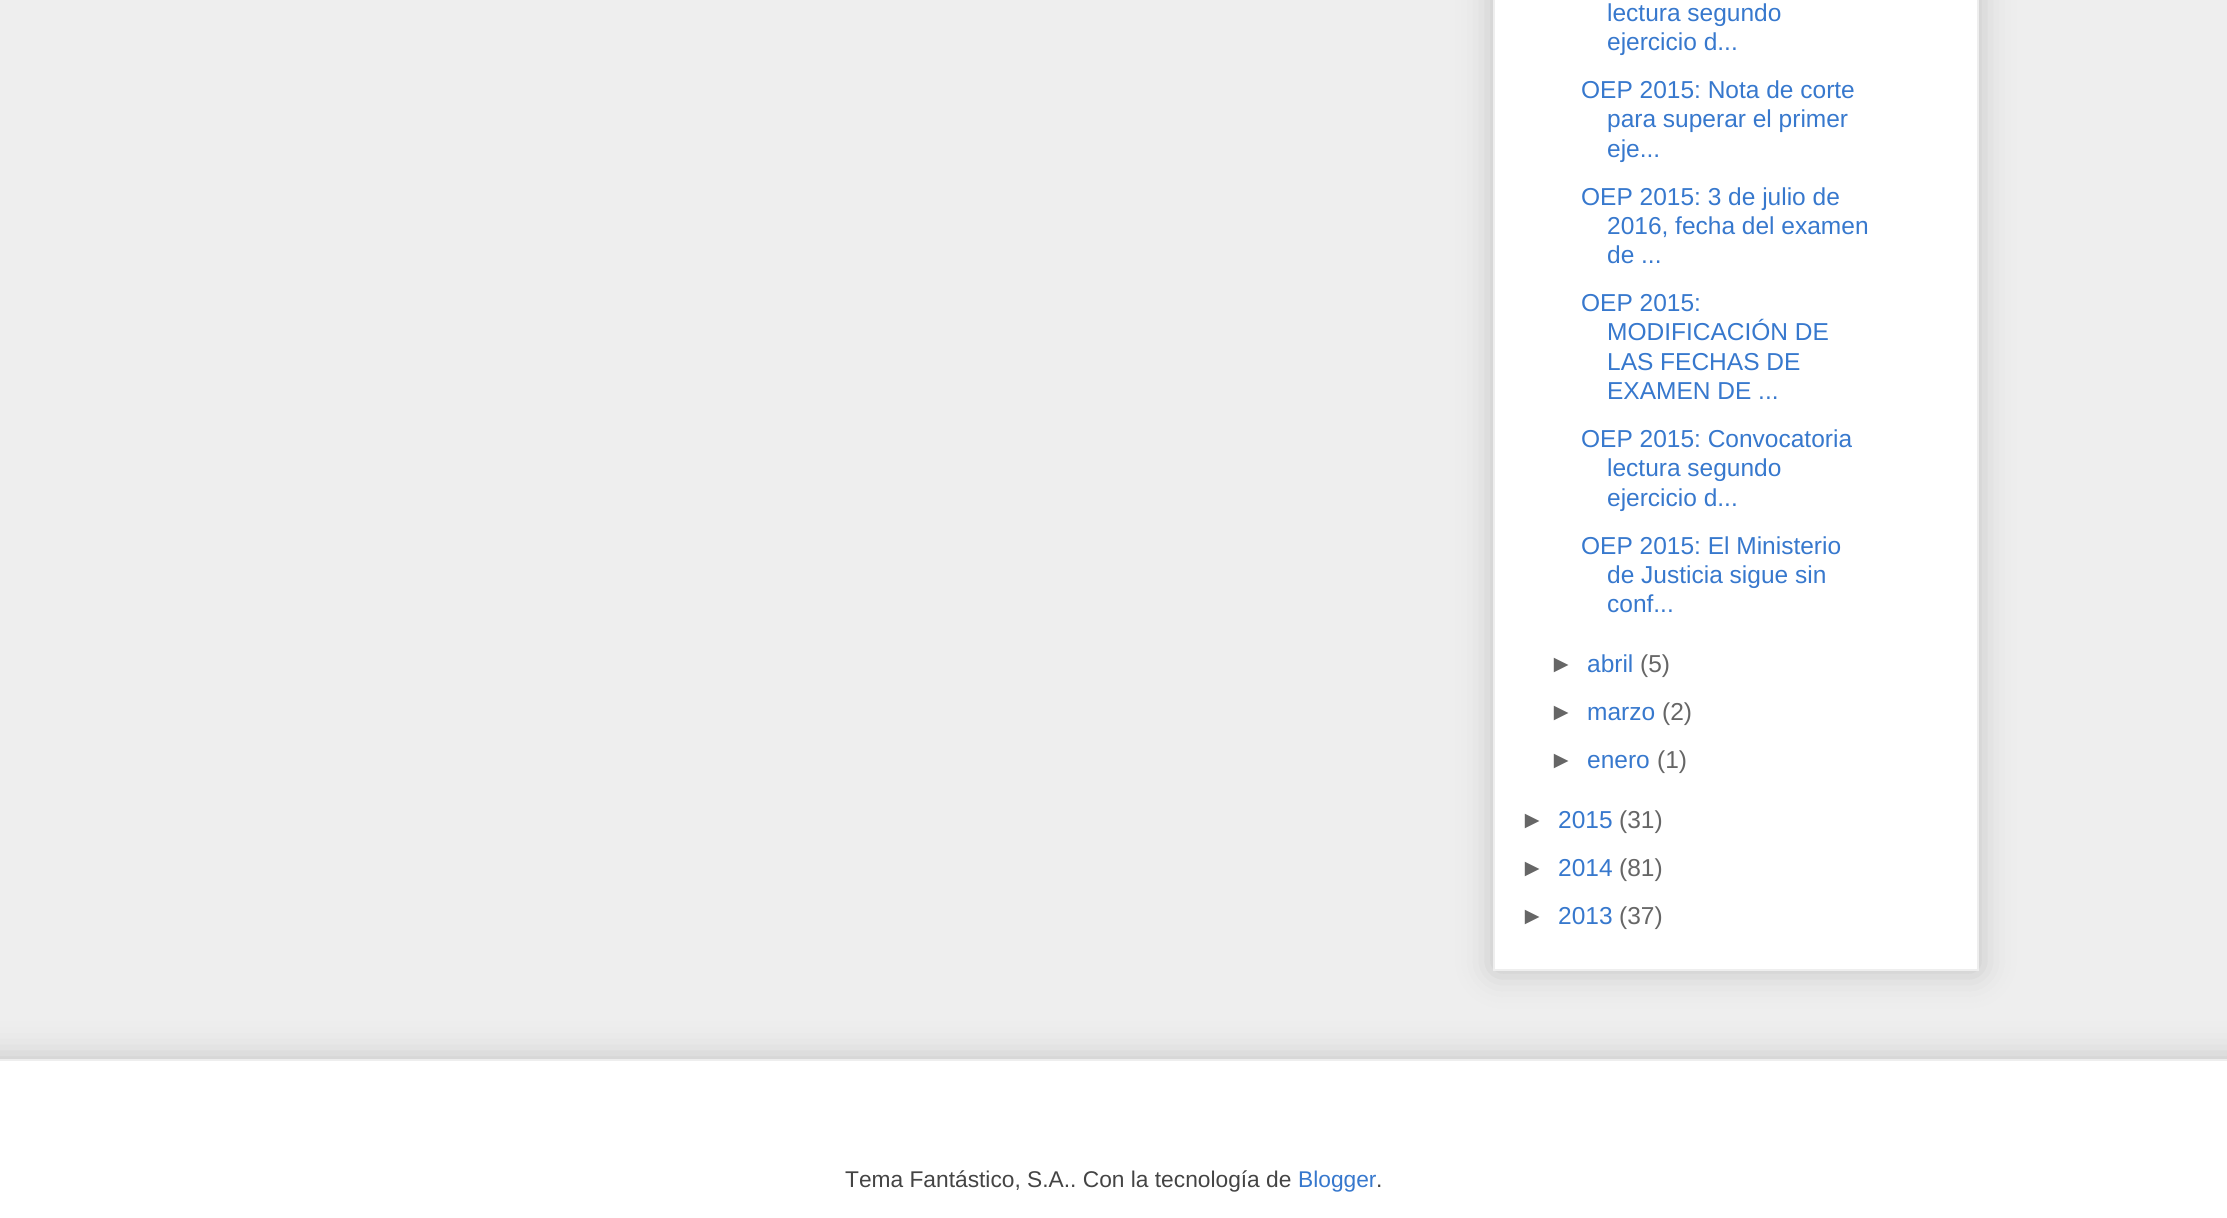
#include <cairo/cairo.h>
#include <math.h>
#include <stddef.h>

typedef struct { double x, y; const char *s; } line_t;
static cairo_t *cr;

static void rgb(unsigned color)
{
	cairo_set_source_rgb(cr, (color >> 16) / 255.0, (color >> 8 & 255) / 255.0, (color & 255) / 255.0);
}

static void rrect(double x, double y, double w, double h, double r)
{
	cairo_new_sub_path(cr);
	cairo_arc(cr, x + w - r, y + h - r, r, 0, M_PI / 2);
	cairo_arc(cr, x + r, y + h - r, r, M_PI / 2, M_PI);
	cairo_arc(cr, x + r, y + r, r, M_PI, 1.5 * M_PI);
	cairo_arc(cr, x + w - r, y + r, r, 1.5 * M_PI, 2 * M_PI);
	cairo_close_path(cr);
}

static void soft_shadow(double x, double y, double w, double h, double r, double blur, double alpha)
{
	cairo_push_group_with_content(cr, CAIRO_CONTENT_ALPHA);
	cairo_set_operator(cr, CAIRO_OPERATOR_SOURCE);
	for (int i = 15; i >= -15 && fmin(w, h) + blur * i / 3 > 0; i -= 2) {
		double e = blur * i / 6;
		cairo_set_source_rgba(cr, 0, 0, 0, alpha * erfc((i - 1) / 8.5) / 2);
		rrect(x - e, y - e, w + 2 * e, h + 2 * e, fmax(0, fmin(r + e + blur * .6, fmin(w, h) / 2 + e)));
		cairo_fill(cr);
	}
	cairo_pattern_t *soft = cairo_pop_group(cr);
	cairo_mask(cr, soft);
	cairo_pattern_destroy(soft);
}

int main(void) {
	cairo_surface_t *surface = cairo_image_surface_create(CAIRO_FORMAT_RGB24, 2227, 1218);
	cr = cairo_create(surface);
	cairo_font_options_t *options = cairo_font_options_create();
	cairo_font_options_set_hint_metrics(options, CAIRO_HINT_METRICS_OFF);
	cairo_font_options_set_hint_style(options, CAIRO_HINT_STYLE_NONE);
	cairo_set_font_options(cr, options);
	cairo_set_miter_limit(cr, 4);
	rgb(0xeeeeee);
	cairo_paint(cr);
	rgb(0x000000);
	soft_shadow(1493, -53, 486, 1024, 0, 17.5, 0.2);
	rgb(0xffffff);
	cairo_rectangle(cr, 1494, -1, 484, 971);
	cairo_fill_preserve(cr);
	rgb(0xeeeeee);
	cairo_stroke(cr);
	rgb(0x000000);
	soft_shadow(-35, 1059, 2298, 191, 0, 17.5, 0.2);
	rgb(0xffffff);
	cairo_rectangle(cr, 0, 1061, 2227, 157);
	cairo_fill(cr);
	rgb(0xeeeeee);
	cairo_rectangle(cr, 0, 1059, 2227, 2);
	cairo_fill(cr);
	cairo_select_font_face(cr, "Liberation Sans", CAIRO_FONT_SLANT_NORMAL, CAIRO_FONT_WEIGHT_NORMAL);
	cairo_set_font_size(cr, 24.5);
	rgb(0x3778cd);
	{
		static const line_t items[] = {
			{1607, 21, "lectura segundo"},
			{1607, 50, "ejercicio d..."},
			{1581, 98, "OEP 2015: Nota de corte"},
			{1607, 127, "para superar el primer"},
			{1607, 157, "eje..."},
			{1581, 205, "OEP 2015: 3 de julio de"},
			{1607, 234, "2016, fecha del examen"},
			{1607, 263, "de ..."},
			{1581, 311, "OEP 2015:"},
			{1607, 340, "MODIFICACIÓN DE"},
			{1607, 370, "LAS FECHAS DE"},
			{1607, 399, "EXAMEN DE ..."},
			{1581, 447, "OEP 2015: Convocatoria"},
			{1607, 476, "lectura segundo"},
			{1607, 506, "ejercicio d..."},
			{1581, 554, "OEP 2015: El Ministerio"},
			{1607, 583, "de Justicia sigue sin"},
			{1607, 612, "conf..."},
		};
		for (size_t i = 0; i < sizeof items / sizeof *items; i++) {
			cairo_move_to(cr, items[i].x, items[i].y);
			cairo_show_text(cr, items[i].s);
		}
	}
	rgb(0x666666);
	cairo_move_to(cr, 1549, 672);
	cairo_show_text(cr, "►");
	rgb(0x3778cd);
	cairo_move_to(cr, 1587, 672);
	cairo_show_text(cr, "abril");
	rgb(0x666666);
	cairo_move_to(cr, 1640, 672);
	cairo_show_text(cr, "(5)");
	cairo_move_to(cr, 1549, 720);
	cairo_show_text(cr, "►");
	rgb(0x3778cd);
	cairo_move_to(cr, 1587, 720);
	cairo_show_text(cr, "marzo");
	rgb(0x666666);
	cairo_move_to(cr, 1662, 720);
	cairo_show_text(cr, "(2)");
	cairo_move_to(cr, 1549, 768);
	cairo_show_text(cr, "►");
	rgb(0x3778cd);
	cairo_move_to(cr, 1587, 768);
	cairo_show_text(cr, "enero");
	rgb(0x666666);
	cairo_move_to(cr, 1657, 768);
	cairo_show_text(cr, "(1)");
	cairo_move_to(cr, 1520, 828);
	cairo_show_text(cr, "►");
	rgb(0x3778cd);
	cairo_move_to(cr, 1558, 828);
	cairo_show_text(cr, "2015");
	rgb(0x666666);
	cairo_move_to(cr, 1619, 828);
	cairo_show_text(cr, "(31)");
	cairo_move_to(cr, 1520, 876);
	cairo_show_text(cr, "►");
	rgb(0x3778cd);
	cairo_move_to(cr, 1558, 876);
	cairo_show_text(cr, "2014");
	rgb(0x666666);
	cairo_move_to(cr, 1619, 876);
	cairo_show_text(cr, "(81)");
	cairo_move_to(cr, 1520, 924);
	cairo_show_text(cr, "►");
	rgb(0x3778cd);
	cairo_move_to(cr, 1558, 924);
	cairo_show_text(cr, "2013");
	rgb(0x666666);
	cairo_move_to(cr, 1619, 924);
	cairo_show_text(cr, "(37)");
	cairo_set_font_size(cr, 22.75);
	rgb(0x444444);
	cairo_move_to(cr, 845, 1187);
	cairo_show_text(cr, "Tema Fantástico, S.A.. Con la tecnología de");
	rgb(0x3778cd);
	cairo_move_to(cr, 1298, 1187);
	cairo_show_text(cr, "Blogger");
	rgb(0x444444);
	cairo_move_to(cr, 1376, 1187);
	cairo_show_text(cr, ".");
	cairo_surface_write_to_png(surface, "page.png");
	cairo_font_options_destroy(options);
	cairo_destroy(cr);
	cairo_surface_destroy(surface);
	return 0;
}
